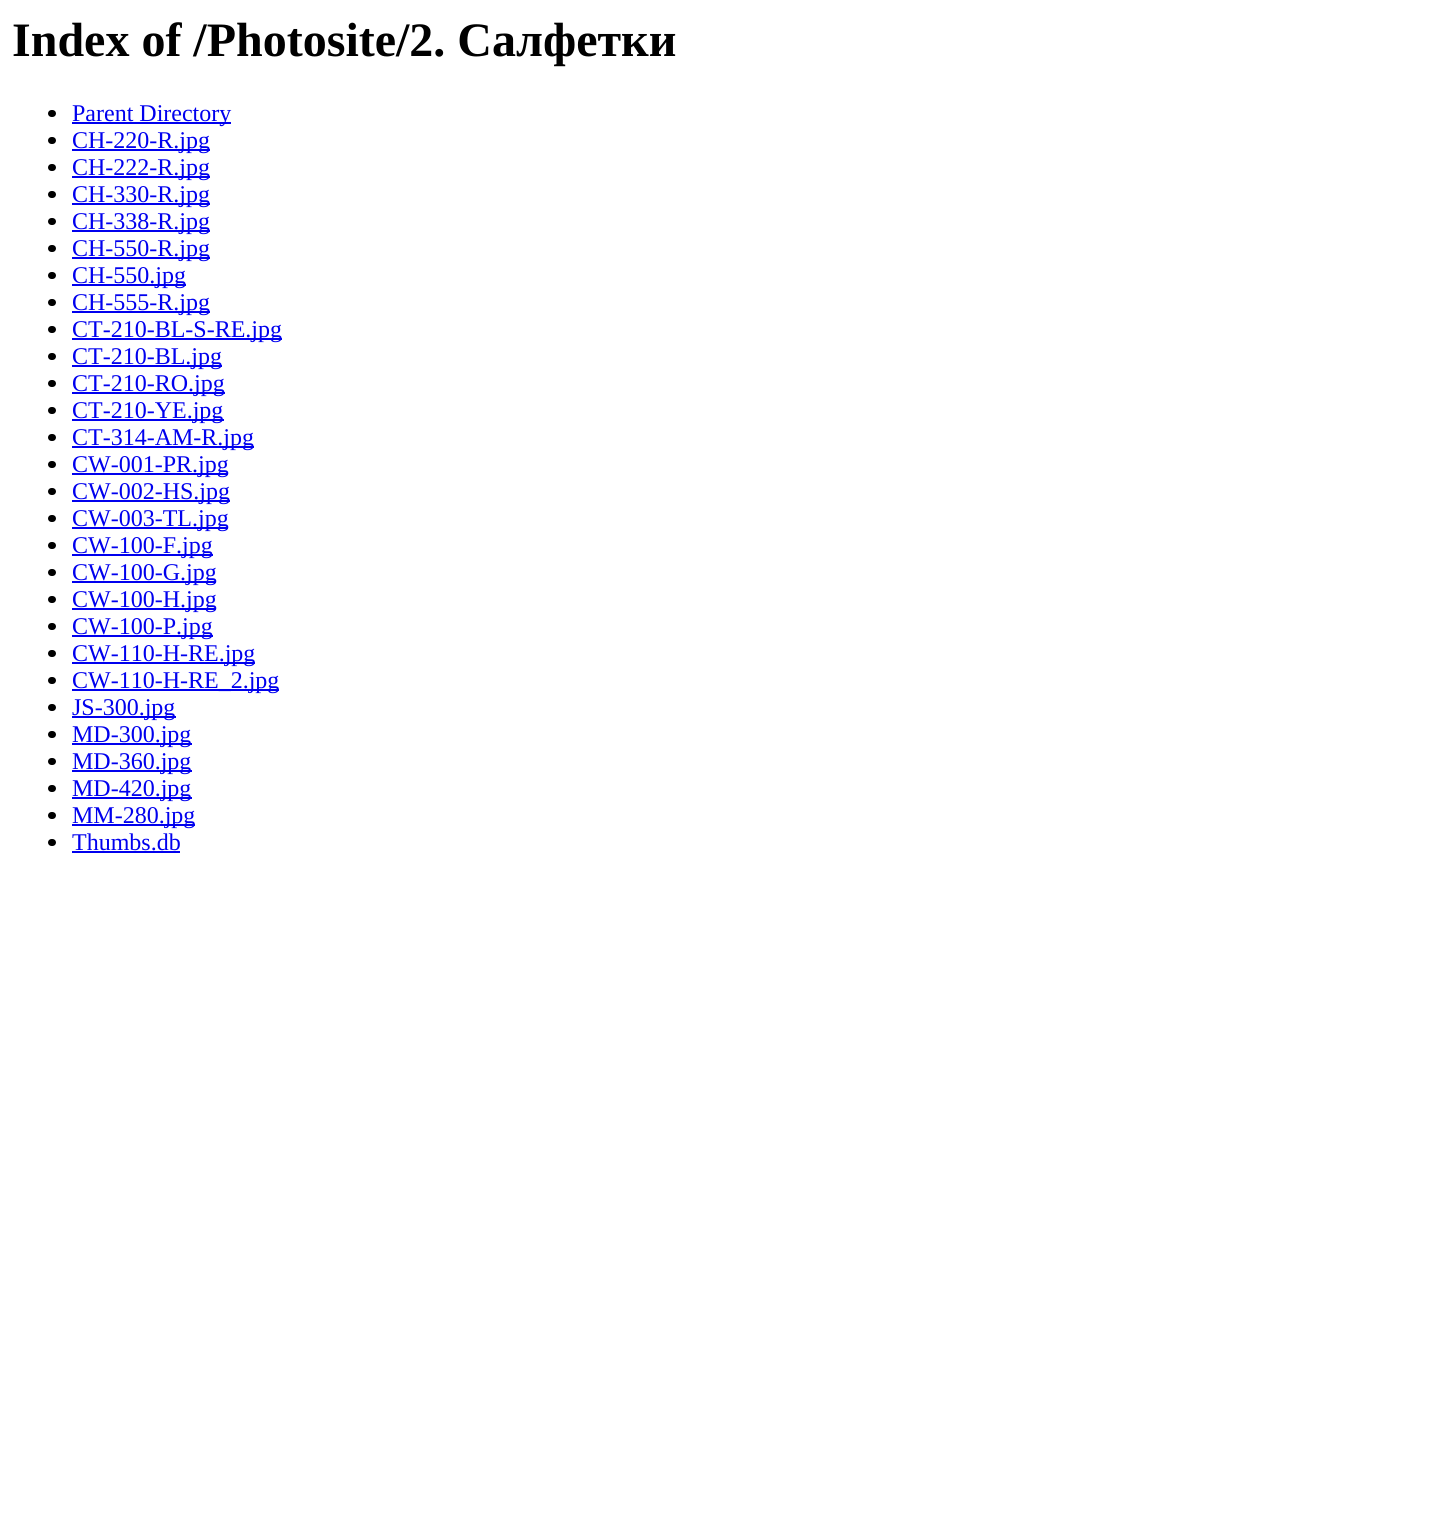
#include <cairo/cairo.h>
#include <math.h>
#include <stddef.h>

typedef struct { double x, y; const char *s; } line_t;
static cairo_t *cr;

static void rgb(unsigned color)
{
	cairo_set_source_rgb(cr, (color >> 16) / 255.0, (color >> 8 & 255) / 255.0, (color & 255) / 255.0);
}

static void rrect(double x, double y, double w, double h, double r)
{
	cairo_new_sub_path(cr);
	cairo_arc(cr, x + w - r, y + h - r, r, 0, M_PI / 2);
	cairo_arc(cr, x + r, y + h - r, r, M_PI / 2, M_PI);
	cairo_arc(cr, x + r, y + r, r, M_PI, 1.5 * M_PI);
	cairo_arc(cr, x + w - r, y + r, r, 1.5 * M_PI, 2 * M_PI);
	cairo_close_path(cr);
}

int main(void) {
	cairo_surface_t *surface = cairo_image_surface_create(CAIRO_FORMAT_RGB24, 1455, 1539);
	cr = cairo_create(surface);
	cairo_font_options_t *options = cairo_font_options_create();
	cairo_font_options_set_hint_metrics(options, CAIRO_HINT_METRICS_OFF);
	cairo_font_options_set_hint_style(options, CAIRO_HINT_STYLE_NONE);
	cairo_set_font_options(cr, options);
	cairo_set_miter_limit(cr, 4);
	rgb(0xffffff);
	cairo_paint(cr);
	rgb(0x000000);
	rrect(48, 110, 8, 7, 3.5);
	cairo_fill(cr);
	rgb(0x0000ee);
	cairo_rectangle(cr, 72, 122, 159, 2);
	cairo_fill(cr);
	rgb(0x000000);
	rrect(48, 137, 8, 7, 3.5);
	cairo_fill(cr);
	rgb(0x0000ee);
	cairo_rectangle(cr, 72, 149, 138, 2);
	cairo_fill(cr);
	rgb(0x000000);
	rrect(48, 164, 8, 7, 3.5);
	cairo_fill(cr);
	rgb(0x0000ee);
	cairo_rectangle(cr, 72, 176, 138, 2);
	cairo_fill(cr);
	rgb(0x000000);
	rrect(48, 191, 8, 7, 3.5);
	cairo_fill(cr);
	rgb(0x0000ee);
	cairo_rectangle(cr, 72, 203, 138, 2);
	cairo_fill(cr);
	rgb(0x000000);
	rrect(48, 218, 8, 7, 3.5);
	cairo_fill(cr);
	rgb(0x0000ee);
	cairo_rectangle(cr, 72, 230, 138, 2);
	cairo_fill(cr);
	rgb(0x000000);
	rrect(48, 245, 8, 7, 3.5);
	cairo_fill(cr);
	rgb(0x0000ee);
	cairo_rectangle(cr, 72, 257, 138, 2);
	cairo_fill(cr);
	rgb(0x000000);
	rrect(48, 272, 8, 7, 3.5);
	cairo_fill(cr);
	rgb(0x0000ee);
	cairo_rectangle(cr, 72, 284, 114, 2);
	cairo_fill(cr);
	rgb(0x000000);
	rrect(48, 299, 8, 7, 3.5);
	cairo_fill(cr);
	rgb(0x0000ee);
	cairo_rectangle(cr, 72, 311, 138, 2);
	cairo_fill(cr);
	rgb(0x000000);
	rrect(48, 326, 8, 7, 3.5);
	cairo_fill(cr);
	rgb(0x0000ee);
	cairo_rectangle(cr, 72, 338, 210, 2);
	cairo_fill(cr);
	rgb(0x000000);
	rrect(48, 353, 8, 7, 3.5);
	cairo_fill(cr);
	rgb(0x0000ee);
	cairo_rectangle(cr, 72, 365, 150, 2);
	cairo_fill(cr);
	rgb(0x000000);
	rrect(48, 380, 8, 7, 3.5);
	cairo_fill(cr);
	rgb(0x0000ee);
	cairo_rectangle(cr, 72, 392, 153, 2);
	cairo_fill(cr);
	rgb(0x000000);
	rrect(48, 407, 8, 7, 3.5);
	cairo_fill(cr);
	rgb(0x0000ee);
	cairo_rectangle(cr, 72, 419, 152, 2);
	cairo_fill(cr);
	rgb(0x000000);
	rrect(48, 434, 8, 7, 3.5);
	cairo_fill(cr);
	rgb(0x0000ee);
	cairo_rectangle(cr, 72, 446, 182, 2);
	cairo_fill(cr);
	rgb(0x000000);
	rrect(48, 461, 8, 7, 3.5);
	cairo_fill(cr);
	rgb(0x0000ee);
	cairo_rectangle(cr, 72, 473, 156, 2);
	cairo_fill(cr);
	rgb(0x000000);
	rrect(48, 488, 8, 7, 3.5);
	cairo_fill(cr);
	rgb(0x0000ee);
	cairo_rectangle(cr, 72, 500, 158, 2);
	cairo_fill(cr);
	rgb(0x000000);
	rrect(48, 515, 8, 7, 3.5);
	cairo_fill(cr);
	rgb(0x0000ee);
	cairo_rectangle(cr, 72, 527, 156, 2);
	cairo_fill(cr);
	rgb(0x000000);
	rrect(48, 542, 8, 7, 3.5);
	cairo_fill(cr);
	rgb(0x0000ee);
	cairo_rectangle(cr, 72, 554, 141, 2);
	cairo_fill(cr);
	rgb(0x000000);
	rrect(48, 569, 8, 7, 3.5);
	cairo_fill(cr);
	rgb(0x0000ee);
	cairo_rectangle(cr, 72, 581, 144, 2);
	cairo_fill(cr);
	rgb(0x000000);
	rrect(48, 596, 8, 7, 3.5);
	cairo_fill(cr);
	rgb(0x0000ee);
	cairo_rectangle(cr, 72, 608, 144, 2);
	cairo_fill(cr);
	rgb(0x000000);
	rrect(48, 623, 8, 7, 3.5);
	cairo_fill(cr);
	rgb(0x0000ee);
	cairo_rectangle(cr, 72, 635, 141, 2);
	cairo_fill(cr);
	rgb(0x000000);
	rrect(48, 650, 8, 7, 3.5);
	cairo_fill(cr);
	rgb(0x0000ee);
	cairo_rectangle(cr, 72, 662, 183, 2);
	cairo_fill(cr);
	rgb(0x000000);
	rrect(48, 677, 8, 7, 3.5);
	cairo_fill(cr);
	rgb(0x0000ee);
	cairo_rectangle(cr, 72, 689, 207, 2);
	cairo_fill(cr);
	rgb(0x000000);
	rrect(48, 704, 8, 7, 3.5);
	cairo_fill(cr);
	rgb(0x0000ee);
	cairo_rectangle(cr, 72, 716, 104, 2);
	cairo_fill(cr);
	rgb(0x000000);
	rrect(48, 731, 8, 7, 3.5);
	cairo_fill(cr);
	rgb(0x0000ee);
	cairo_rectangle(cr, 72, 743, 120, 2);
	cairo_fill(cr);
	rgb(0x000000);
	rrect(48, 758, 8, 7, 3.5);
	cairo_fill(cr);
	rgb(0x0000ee);
	cairo_rectangle(cr, 72, 770, 120, 2);
	cairo_fill(cr);
	rgb(0x000000);
	rrect(48, 785, 8, 7, 3.5);
	cairo_fill(cr);
	rgb(0x0000ee);
	cairo_rectangle(cr, 72, 797, 120, 2);
	cairo_fill(cr);
	rgb(0x000000);
	rrect(48, 812, 8, 7, 3.5);
	cairo_fill(cr);
	rgb(0x0000ee);
	cairo_rectangle(cr, 72, 824, 123, 2);
	cairo_fill(cr);
	rgb(0x000000);
	rrect(48, 839, 8, 7, 3.5);
	cairo_fill(cr);
	rgb(0x0000ee);
	cairo_rectangle(cr, 72, 851, 108, 2);
	cairo_fill(cr);
	cairo_select_font_face(cr, "Liberation Serif", CAIRO_FONT_SLANT_NORMAL, CAIRO_FONT_WEIGHT_BOLD);
	cairo_set_font_size(cr, 48);
	rgb(0x000000);
	cairo_move_to(cr, 12, 56);
	cairo_show_text(cr, "Index of /Photosite/2. Салфетки");
	cairo_select_font_face(cr, "Liberation Serif", CAIRO_FONT_SLANT_NORMAL, CAIRO_FONT_WEIGHT_NORMAL);
	cairo_set_font_size(cr, 24);
	rgb(0x0000ee);
	{
		static const line_t items[] = {
			{72, 121, "Parent Directory"},
			{72, 148, "CH-220-R.jpg"},
			{72, 175, "CH-222-R.jpg"},
			{72, 202, "CH-330-R.jpg"},
			{72, 229, "CH-338-R.jpg"},
			{72, 256, "CH-550-R.jpg"},
			{72, 283, "CH-550.jpg"},
			{72, 310, "CH-555-R.jpg"},
			{72, 337, "CT-210-BL-S-RE.jpg"},
			{72, 364, "CT-210-BL.jpg"},
			{72, 391, "CT-210-RO.jpg"},
			{72, 418, "CT-210-YE.jpg"},
			{72, 445, "CT-314-AM-R.jpg"},
			{72, 472, "CW-001-PR.jpg"},
			{72, 499, "CW-002-HS.jpg"},
			{72, 526, "CW-003-TL.jpg"},
			{72, 553, "CW-100-F.jpg"},
			{72, 580, "CW-100-G.jpg"},
			{72, 607, "CW-100-H.jpg"},
			{72, 634, "CW-100-P.jpg"},
			{72, 661, "CW-110-H-RE.jpg"},
			{72, 688, "CW-110-H-RE_2.jpg"},
			{72, 715, "JS-300.jpg"},
			{72, 742, "MD-300.jpg"},
			{72, 769, "MD-360.jpg"},
			{72, 796, "MD-420.jpg"},
			{72, 823, "MM-280.jpg"},
			{72, 850, "Thumbs.db"},
		};
		for (size_t i = 0; i < sizeof items / sizeof *items; i++) {
			cairo_move_to(cr, items[i].x, items[i].y);
			cairo_show_text(cr, items[i].s);
		}
	}
	cairo_surface_write_to_png(surface, "page.png");
	cairo_font_options_destroy(options);
	cairo_destroy(cr);
	cairo_surface_destroy(surface);
	return 0;
}
